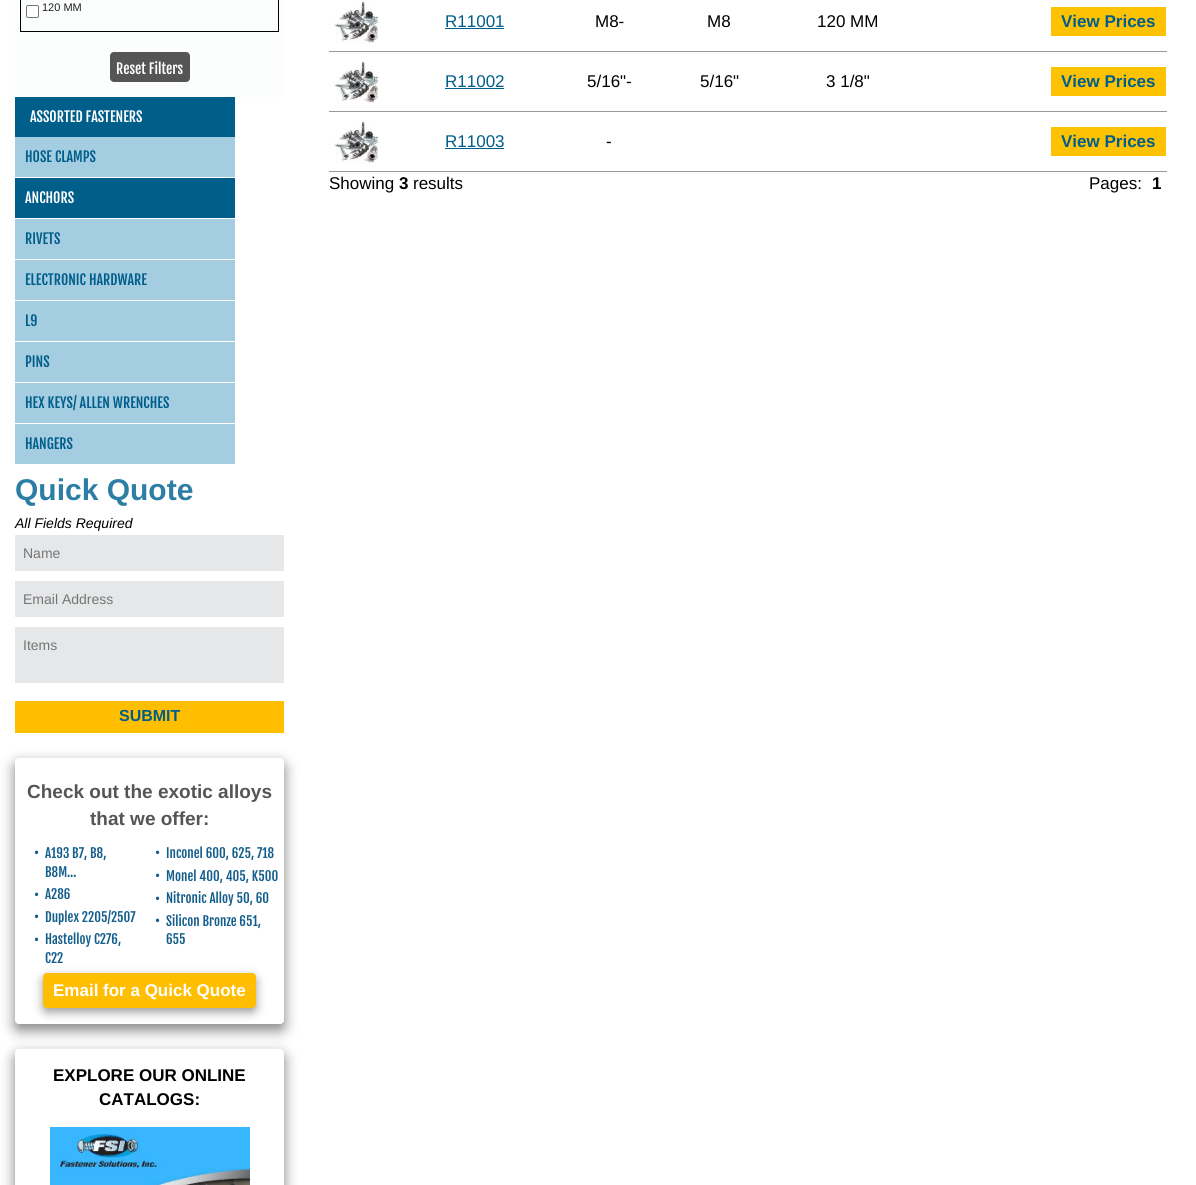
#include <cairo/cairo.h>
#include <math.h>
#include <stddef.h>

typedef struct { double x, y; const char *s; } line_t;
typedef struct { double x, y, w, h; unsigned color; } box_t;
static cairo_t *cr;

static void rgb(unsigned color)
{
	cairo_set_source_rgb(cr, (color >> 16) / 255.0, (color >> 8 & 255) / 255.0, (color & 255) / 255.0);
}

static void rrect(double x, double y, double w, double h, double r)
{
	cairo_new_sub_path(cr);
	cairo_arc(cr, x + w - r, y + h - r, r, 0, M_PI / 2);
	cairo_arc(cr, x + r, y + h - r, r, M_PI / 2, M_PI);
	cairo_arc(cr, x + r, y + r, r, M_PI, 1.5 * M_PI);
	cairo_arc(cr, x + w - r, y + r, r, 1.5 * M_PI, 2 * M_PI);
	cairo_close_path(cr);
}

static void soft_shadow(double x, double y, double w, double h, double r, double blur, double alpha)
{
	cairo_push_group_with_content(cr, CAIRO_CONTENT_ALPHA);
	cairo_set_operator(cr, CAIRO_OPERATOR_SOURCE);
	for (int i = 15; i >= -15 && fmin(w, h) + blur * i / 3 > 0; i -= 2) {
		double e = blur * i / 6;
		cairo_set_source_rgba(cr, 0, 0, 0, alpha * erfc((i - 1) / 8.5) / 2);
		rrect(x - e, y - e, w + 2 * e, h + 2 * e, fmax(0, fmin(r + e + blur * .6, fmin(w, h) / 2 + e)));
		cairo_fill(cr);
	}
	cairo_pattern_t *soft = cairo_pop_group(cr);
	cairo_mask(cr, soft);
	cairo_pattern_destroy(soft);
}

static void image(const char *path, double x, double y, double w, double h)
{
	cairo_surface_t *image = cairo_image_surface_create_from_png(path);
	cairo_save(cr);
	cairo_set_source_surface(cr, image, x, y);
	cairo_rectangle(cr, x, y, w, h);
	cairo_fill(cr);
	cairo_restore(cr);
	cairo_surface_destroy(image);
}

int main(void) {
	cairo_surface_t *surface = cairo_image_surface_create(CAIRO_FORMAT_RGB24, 1196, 1185);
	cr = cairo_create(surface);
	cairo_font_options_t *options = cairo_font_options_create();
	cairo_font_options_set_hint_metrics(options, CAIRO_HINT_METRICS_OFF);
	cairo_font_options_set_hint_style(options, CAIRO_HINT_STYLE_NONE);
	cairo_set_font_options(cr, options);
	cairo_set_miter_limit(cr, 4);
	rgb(0xffffff);
	cairo_paint(cr);
	rgb(0xfcfdfd);
	cairo_rectangle(cr, 15, 0, 269, 97);
	cairo_fill(cr);
	cairo_rectangle(cr, 20.5, -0.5, 258, 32);
	rgb(0x000000);
	cairo_set_line_width(cr, 1);
	cairo_stroke(cr);
	rgb(0xffffff);
	rrect(26.5, 5.5, 12, 12, 1.5);
	cairo_fill_preserve(cr);
	rgb(0x767676);
	cairo_stroke(cr);
	rgb(0x555555);
	rrect(110, 52, 80, 30, 4);
	cairo_fill(cr);
	{
		static const box_t items[] = {
			{15, 97, 220, 121, 0x005e8a},
			{15, 137, 220, 40, 0xa5cde1},
			{15, 177, 220, 1, 0xffffff},
			{15, 219, 220, 40, 0xa5cde1},
			{15, 260, 220, 40, 0xa5cde1},
			{15, 301, 220, 40, 0xa5cde1},
			{15, 342, 220, 40, 0xa5cde1},
			{15, 383, 220, 40, 0xa5cde1},
			{15, 424, 220, 40, 0xa5cde1},
			{15, 535, 269, 36, 0xe6e7e9},
			{15, 581, 269, 36, 0xe6e7e9},
			{15, 627, 269, 56, 0xe6e7e9},
			{15, 701, 269, 32, 0xffbe00},
		};
		for (size_t i = 0; i < sizeof items / sizeof *items; i++) {
			rgb(items[i].color);
			cairo_rectangle(cr, items[i].x, items[i].y, items[i].w, items[i].h);
			cairo_fill(cr);
		}
	}
	cairo_save(cr);
	cairo_set_fill_rule(cr, CAIRO_FILL_RULE_EVEN_ODD);
	cairo_new_path(cr);
	cairo_move_to(cr, 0, 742);
	cairo_line_to(cr, 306, 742);
	cairo_line_to(cr, 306, 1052);
	cairo_line_to(cr, 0, 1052);
	cairo_close_path(cr);
	cairo_move_to(cr, 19, 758);
	cairo_line_to(cr, 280, 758);
	cairo_curve_to(cr, 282, 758, 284, 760, 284, 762);
	cairo_line_to(cr, 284, 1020);
	cairo_curve_to(cr, 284, 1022, 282, 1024, 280, 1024);
	cairo_line_to(cr, 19, 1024);
	cairo_curve_to(cr, 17, 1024, 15, 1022, 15, 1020);
	cairo_line_to(cr, 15, 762);
	cairo_curve_to(cr, 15, 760, 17, 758, 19, 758);
	cairo_close_path(cr);
	cairo_clip(cr);
	rgb(0x000000);
	soft_shadow(15, 764, 269, 266, 4, 7, 0.5);
	cairo_restore(cr);
	rgb(0x000000);
	soft_shadow(43, 977, 213, 35, 4, 5, 0.4);
	rgb(0xffbe00);
	rrect(43, 973, 213, 35, 4);
	cairo_fill(cr);
	cairo_save(cr);
	cairo_set_fill_rule(cr, CAIRO_FILL_RULE_EVEN_ODD);
	cairo_new_path(cr);
	cairo_move_to(cr, 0, 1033);
	cairo_line_to(cr, 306, 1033);
	cairo_line_to(cr, 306, 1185);
	cairo_line_to(cr, 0, 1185);
	cairo_close_path(cr);
	cairo_move_to(cr, 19, 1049);
	cairo_line_to(cr, 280, 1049);
	cairo_curve_to(cr, 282, 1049, 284, 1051, 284, 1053);
	cairo_line_to(cr, 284, 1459);
	cairo_curve_to(cr, 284, 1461, 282, 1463, 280, 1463);
	cairo_line_to(cr, 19, 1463);
	cairo_curve_to(cr, 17, 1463, 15, 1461, 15, 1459);
	cairo_line_to(cr, 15, 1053);
	cairo_curve_to(cr, 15, 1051, 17, 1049, 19, 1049);
	cairo_close_path(cr);
	cairo_clip(cr);
	rgb(0x000000);
	soft_shadow(15, 1055, 269, 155, 4, 7, 0.5);
	cairo_restore(cr);
	image("img/1.png", 50, 1127, 200, 58);
	image("img/2.png", 334, 1, 45, 43);
	{
		static const box_t items[] = {
			{445, 28, 59, 1, 0x005e8a},
			{329, 51, 838, 1, 0x999999},
			{1051, 7, 115, 29, 0xfdc202},
		};
		for (size_t i = 0; i < sizeof items / sizeof *items; i++) {
			rgb(items[i].color);
			cairo_rectangle(cr, items[i].x, items[i].y, items[i].w, items[i].h);
			cairo_fill(cr);
		}
	}
	image("img/2.png", 334, 61, 45, 43);
	{
		static const box_t items[] = {
			{445, 88, 59, 1, 0x005e8a},
			{329, 111, 838, 1, 0x999999},
			{1051, 67, 115, 29, 0xfdc202},
		};
		for (size_t i = 0; i < sizeof items / sizeof *items; i++) {
			rgb(items[i].color);
			cairo_rectangle(cr, items[i].x, items[i].y, items[i].w, items[i].h);
			cairo_fill(cr);
		}
	}
	image("img/2.png", 334, 121, 45, 43);
	{
		static const box_t items[] = {
			{445, 148, 59, 1, 0x005e8a},
			{329, 171, 838, 1, 0x999999},
			{1051, 127, 115, 29, 0xfdc202},
		};
		for (size_t i = 0; i < sizeof items / sizeof *items; i++) {
			rgb(items[i].color);
			cairo_rectangle(cr, items[i].x, items[i].y, items[i].w, items[i].h);
			cairo_fill(cr);
		}
	}
	cairo_select_font_face(cr, "Liberation Sans", CAIRO_FONT_SLANT_NORMAL, CAIRO_FONT_WEIGHT_NORMAL);
	cairo_set_font_size(cr, 11);
	rgb(0x222222);
	cairo_move_to(cr, 42, 11);
	cairo_show_text(cr, "120 MM");
	cairo_select_font_face(cr, "Fjalla One", CAIRO_FONT_SLANT_NORMAL, CAIRO_FONT_WEIGHT_NORMAL);
	cairo_set_font_size(cr, 14);
	rgb(0xffffff);
	cairo_move_to(cr, 116, 74);
	cairo_show_text(cr, "Reset Filters");
	cairo_move_to(cr, 30, 122);
	cairo_show_text(cr, "ASSORTED FASTENERS");
	rgb(0x005e8a);
	cairo_move_to(cr, 25, 162);
	cairo_show_text(cr, "HOSE CLAMPS");
	rgb(0xffffff);
	cairo_move_to(cr, 25, 203);
	cairo_show_text(cr, "ANCHORS");
	rgb(0x005e8a);
	{
		static const line_t items[] = {
			{25, 244, "RIVETS"},
			{25, 285, "ELECTRONIC HARDWARE"},
			{25, 326, "L9"},
			{25, 367, "PINS"},
			{25, 408, "HEX KEYS/ ALLEN WRENCHES"},
			{25, 449, "HANGERS"},
		};
		for (size_t i = 0; i < sizeof items / sizeof *items; i++) {
			cairo_move_to(cr, items[i].x, items[i].y);
			cairo_show_text(cr, items[i].s);
		}
	}
	cairo_select_font_face(cr, "Liberation Sans", CAIRO_FONT_SLANT_NORMAL, CAIRO_FONT_WEIGHT_BOLD);
	cairo_set_font_size(cr, 30);
	rgb(0x2c7ea5);
	cairo_move_to(cr, 15, 500);
	cairo_show_text(cr, "Quick Quote");
	cairo_select_font_face(cr, "Liberation Sans", CAIRO_FONT_SLANT_ITALIC, CAIRO_FONT_WEIGHT_NORMAL);
	cairo_set_font_size(cr, 14);
	rgb(0x000000);
	cairo_move_to(cr, 15, 528);
	cairo_show_text(cr, "All Fields Required");
	cairo_select_font_face(cr, "Liberation Sans", CAIRO_FONT_SLANT_NORMAL, CAIRO_FONT_WEIGHT_NORMAL);
	rgb(0x757575);
	{
		static const line_t items[] = {
			{23, 558, "Name"},
			{23, 604, "Email Address"},
			{23, 650, "Items"},
		};
		for (size_t i = 0; i < sizeof items / sizeof *items; i++) {
			cairo_move_to(cr, items[i].x, items[i].y);
			cairo_show_text(cr, items[i].s);
		}
	}
	cairo_select_font_face(cr, "Liberation Sans", CAIRO_FONT_SLANT_NORMAL, CAIRO_FONT_WEIGHT_BOLD);
	cairo_set_font_size(cr, 16);
	rgb(0x005e8a);
	cairo_move_to(cr, 119, 721);
	cairo_show_text(cr, "SUBMIT");
	cairo_set_font_size(cr, 19);
	rgb(0x555555);
	cairo_move_to(cr, 27, 798);
	cairo_show_text(cr, "Check out the exotic alloys");
	cairo_move_to(cr, 90, 825);
	cairo_show_text(cr, "that we offer:");
	cairo_select_font_face(cr, "Fjalla One", CAIRO_FONT_SLANT_NORMAL, CAIRO_FONT_WEIGHT_NORMAL);
	cairo_set_font_size(cr, 15);
	rgb(0x145e8b);
	cairo_move_to(cr, 34, 858);
	cairo_show_text(cr, "•");
	cairo_set_font_size(cr, 13);
	cairo_move_to(cr, 45, 858);
	cairo_show_text(cr, "A193 B7, B8,");
	cairo_move_to(cr, 45, 877);
	cairo_show_text(cr, "B8M…");
	cairo_set_font_size(cr, 15);
	cairo_move_to(cr, 34, 900);
	cairo_show_text(cr, "•");
	cairo_set_font_size(cr, 13);
	cairo_move_to(cr, 45, 899);
	cairo_show_text(cr, "A286");
	cairo_set_font_size(cr, 15);
	cairo_move_to(cr, 34, 922);
	cairo_show_text(cr, "•");
	cairo_set_font_size(cr, 13);
	cairo_move_to(cr, 45, 922);
	cairo_show_text(cr, "Duplex 2205/2507");
	cairo_set_font_size(cr, 15);
	cairo_move_to(cr, 34, 945);
	cairo_show_text(cr, "•");
	cairo_set_font_size(cr, 13);
	cairo_move_to(cr, 45, 944);
	cairo_show_text(cr, "Hastelloy C276,");
	cairo_move_to(cr, 45, 963);
	cairo_show_text(cr, "C22");
	cairo_set_font_size(cr, 15);
	cairo_move_to(cr, 155, 858);
	cairo_show_text(cr, "•");
	cairo_set_font_size(cr, 13);
	cairo_move_to(cr, 166, 858);
	cairo_show_text(cr, "Inconel 600, 625, 718");
	cairo_set_font_size(cr, 15);
	cairo_move_to(cr, 155, 881);
	cairo_show_text(cr, "•");
	cairo_set_font_size(cr, 13);
	cairo_move_to(cr, 166, 881);
	cairo_show_text(cr, "Monel 400, 405, K500");
	cairo_set_font_size(cr, 15);
	cairo_move_to(cr, 155, 904);
	cairo_show_text(cr, "•");
	cairo_set_font_size(cr, 13);
	cairo_move_to(cr, 166, 903);
	cairo_show_text(cr, "Nitronic Alloy 50, 60");
	cairo_set_font_size(cr, 15);
	cairo_move_to(cr, 155, 926);
	cairo_show_text(cr, "•");
	cairo_set_font_size(cr, 13);
	cairo_move_to(cr, 166, 926);
	cairo_show_text(cr, "Silicon Bronze 651,");
	cairo_move_to(cr, 166, 944);
	cairo_show_text(cr, "655");
	cairo_select_font_face(cr, "Liberation Sans", CAIRO_FONT_SLANT_NORMAL, CAIRO_FONT_WEIGHT_BOLD);
	cairo_set_font_size(cr, 17);
	rgb(0xffffff);
	cairo_move_to(cr, 53, 996);
	cairo_show_text(cr, "Email for a Quick Quote");
	rgb(0x000000);
	cairo_move_to(cr, 53, 1081);
	cairo_show_text(cr, "EXPLORE OUR ONLINE");
	cairo_move_to(cr, 99, 1105);
	cairo_show_text(cr, "CATALOGS:");
	cairo_select_font_face(cr, "Liberation Sans", CAIRO_FONT_SLANT_NORMAL, CAIRO_FONT_WEIGHT_NORMAL);
	rgb(0x005e8a);
	cairo_move_to(cr, 445, 27);
	cairo_show_text(cr, "R11001");
	rgb(0x000000);
	{
		static const line_t items[] = {
			{595, 27, "M8-"},
			{707, 27, "M8"},
			{817, 27, "120 MM"},
		};
		for (size_t i = 0; i < sizeof items / sizeof *items; i++) {
			cairo_move_to(cr, items[i].x, items[i].y);
			cairo_show_text(cr, items[i].s);
		}
	}
	cairo_select_font_face(cr, "Liberation Sans", CAIRO_FONT_SLANT_NORMAL, CAIRO_FONT_WEIGHT_BOLD);
	rgb(0x005e8a);
	cairo_move_to(cr, 1061, 27);
	cairo_show_text(cr, "View Prices");
	cairo_select_font_face(cr, "Liberation Sans", CAIRO_FONT_SLANT_NORMAL, CAIRO_FONT_WEIGHT_NORMAL);
	cairo_move_to(cr, 445, 87);
	cairo_show_text(cr, "R11002");
	rgb(0x000000);
	{
		static const line_t items[] = {
			{587, 87, "5/16\"-"},
			{700, 87, "5/16\""},
			{826, 87, "3 1/8\""},
		};
		for (size_t i = 0; i < sizeof items / sizeof *items; i++) {
			cairo_move_to(cr, items[i].x, items[i].y);
			cairo_show_text(cr, items[i].s);
		}
	}
	cairo_select_font_face(cr, "Liberation Sans", CAIRO_FONT_SLANT_NORMAL, CAIRO_FONT_WEIGHT_BOLD);
	rgb(0x005e8a);
	cairo_move_to(cr, 1061, 87);
	cairo_show_text(cr, "View Prices");
	cairo_select_font_face(cr, "Liberation Sans", CAIRO_FONT_SLANT_NORMAL, CAIRO_FONT_WEIGHT_NORMAL);
	cairo_move_to(cr, 445, 147);
	cairo_show_text(cr, "R11003");
	rgb(0x000000);
	cairo_move_to(cr, 606, 147);
	cairo_show_text(cr, "-");
	cairo_select_font_face(cr, "Liberation Sans", CAIRO_FONT_SLANT_NORMAL, CAIRO_FONT_WEIGHT_BOLD);
	rgb(0x005e8a);
	cairo_move_to(cr, 1061, 147);
	cairo_show_text(cr, "View Prices");
	cairo_select_font_face(cr, "Liberation Sans", CAIRO_FONT_SLANT_NORMAL, CAIRO_FONT_WEIGHT_NORMAL);
	rgb(0x000000);
	cairo_move_to(cr, 329, 189);
	cairo_show_text(cr, "Showing");
	cairo_select_font_face(cr, "Liberation Sans", CAIRO_FONT_SLANT_NORMAL, CAIRO_FONT_WEIGHT_BOLD);
	cairo_move_to(cr, 399, 189);
	cairo_show_text(cr, "3");
	cairo_select_font_face(cr, "Liberation Sans", CAIRO_FONT_SLANT_NORMAL, CAIRO_FONT_WEIGHT_NORMAL);
	cairo_move_to(cr, 413, 189);
	cairo_show_text(cr, "results");
	cairo_move_to(cr, 1089, 189);
	cairo_show_text(cr, "Pages:");
	cairo_select_font_face(cr, "Liberation Sans", CAIRO_FONT_SLANT_NORMAL, CAIRO_FONT_WEIGHT_BOLD);
	cairo_move_to(cr, 1152, 189);
	cairo_show_text(cr, "1");
	cairo_surface_write_to_png(surface, "page.png");
	cairo_font_options_destroy(options);
	cairo_destroy(cr);
	cairo_surface_destroy(surface);
	return 0;
}
